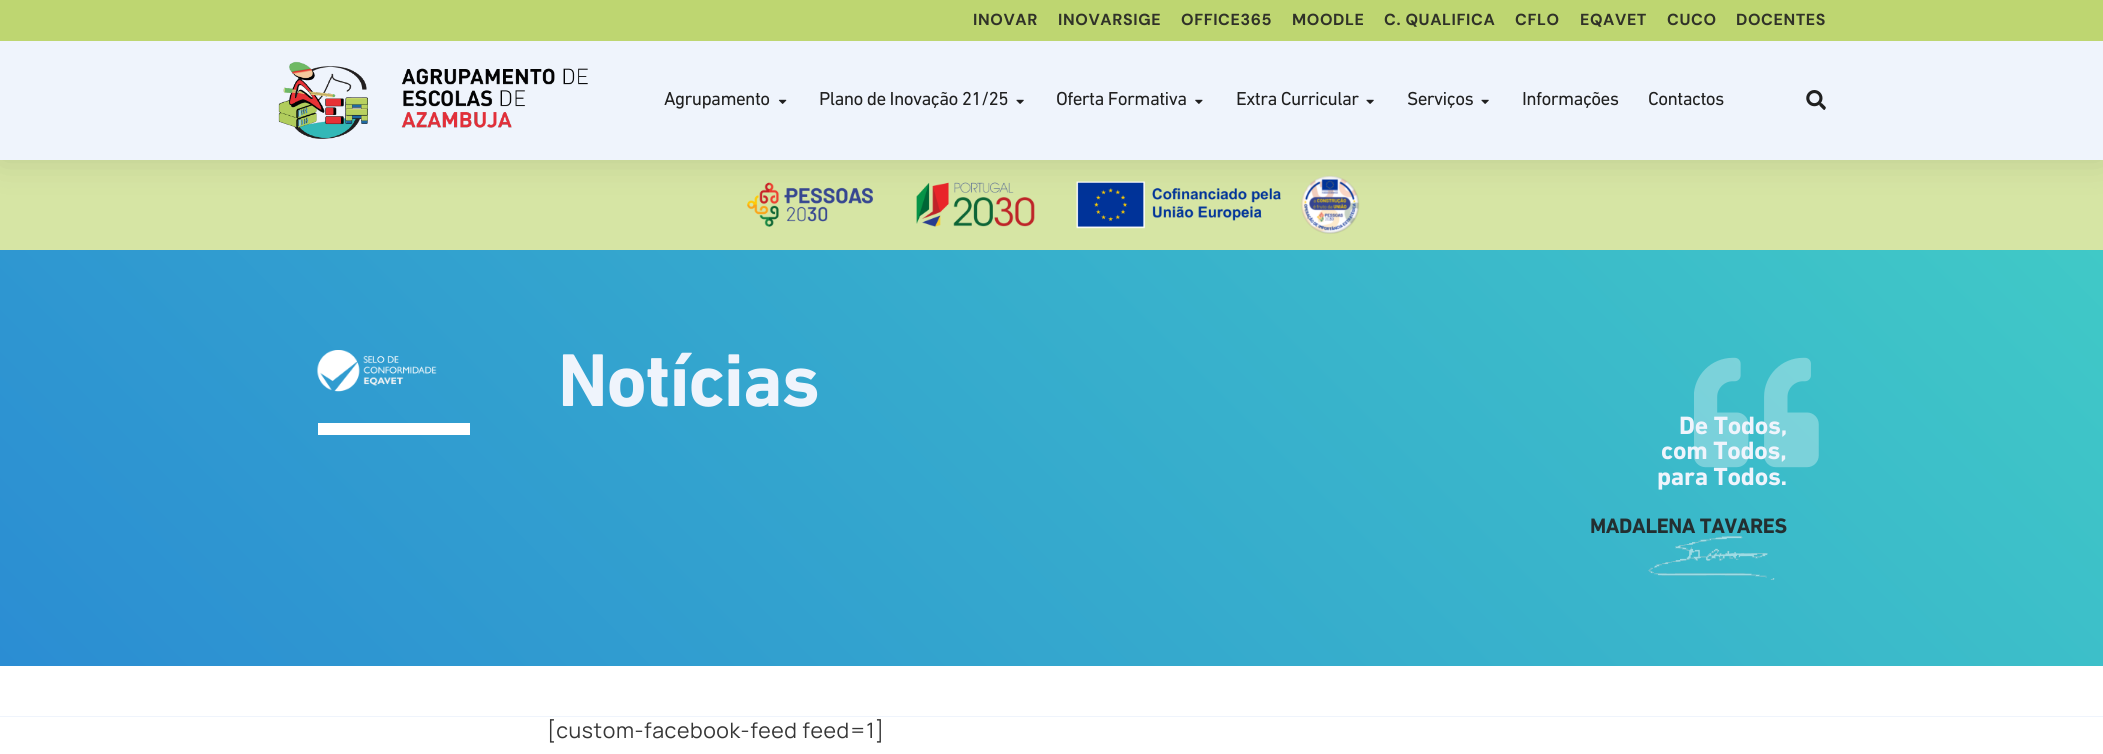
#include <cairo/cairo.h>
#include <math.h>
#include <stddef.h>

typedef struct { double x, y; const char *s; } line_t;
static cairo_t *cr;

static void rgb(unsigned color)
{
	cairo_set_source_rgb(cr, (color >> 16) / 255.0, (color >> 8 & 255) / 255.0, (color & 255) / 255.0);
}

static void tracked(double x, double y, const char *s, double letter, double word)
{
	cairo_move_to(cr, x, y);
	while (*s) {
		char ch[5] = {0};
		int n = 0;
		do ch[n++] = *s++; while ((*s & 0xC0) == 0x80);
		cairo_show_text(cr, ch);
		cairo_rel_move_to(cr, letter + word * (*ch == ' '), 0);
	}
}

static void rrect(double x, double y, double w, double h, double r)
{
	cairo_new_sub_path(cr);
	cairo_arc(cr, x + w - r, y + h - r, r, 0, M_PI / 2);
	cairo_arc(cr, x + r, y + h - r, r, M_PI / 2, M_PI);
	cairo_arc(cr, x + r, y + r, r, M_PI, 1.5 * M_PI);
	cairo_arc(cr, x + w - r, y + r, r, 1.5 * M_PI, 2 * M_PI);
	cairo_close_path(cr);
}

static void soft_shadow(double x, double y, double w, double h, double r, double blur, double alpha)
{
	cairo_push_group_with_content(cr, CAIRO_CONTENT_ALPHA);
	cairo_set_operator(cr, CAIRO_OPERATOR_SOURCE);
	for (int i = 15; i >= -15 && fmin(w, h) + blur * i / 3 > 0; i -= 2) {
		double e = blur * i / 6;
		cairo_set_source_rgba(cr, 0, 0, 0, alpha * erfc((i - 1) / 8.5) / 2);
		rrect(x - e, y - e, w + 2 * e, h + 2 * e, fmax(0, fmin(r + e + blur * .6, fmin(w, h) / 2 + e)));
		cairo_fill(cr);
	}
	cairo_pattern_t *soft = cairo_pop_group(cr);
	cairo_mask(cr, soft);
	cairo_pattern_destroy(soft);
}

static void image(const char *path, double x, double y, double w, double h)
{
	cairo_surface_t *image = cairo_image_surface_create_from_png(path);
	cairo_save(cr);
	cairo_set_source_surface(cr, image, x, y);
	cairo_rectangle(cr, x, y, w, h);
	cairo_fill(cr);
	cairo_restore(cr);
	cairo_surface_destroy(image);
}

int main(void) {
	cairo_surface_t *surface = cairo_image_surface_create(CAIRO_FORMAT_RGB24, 2103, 754);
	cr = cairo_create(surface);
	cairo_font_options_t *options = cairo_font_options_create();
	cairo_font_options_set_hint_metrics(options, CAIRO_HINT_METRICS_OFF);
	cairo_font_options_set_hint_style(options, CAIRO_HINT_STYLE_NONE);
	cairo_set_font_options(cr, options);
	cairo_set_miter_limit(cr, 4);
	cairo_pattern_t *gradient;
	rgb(0xffffff);
	cairo_paint(cr);
	rgb(0xd6e5a4);
	cairo_rectangle(cr, 0, 160, 2103, 90);
	cairo_fill(cr);
	image("img/6.png", 747, 175, 613, 59);
	rgb(0x000000);
	soft_shadow(0, 41, 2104, 119, 0, 19, 0.12);
	rgb(0xbed671);
	cairo_rectangle(cr, 0, 0, 2103, 41);
	cairo_fill(cr);
	rgb(0xeff4fc);
	cairo_rectangle(cr, 0, 41, 2103, 119);
	cairo_fill(cr);
	image("img/1.png", 278, 61, 310, 78);
	image("img/2.png", 778, 99, 9, 5);
	image("img/3.png", 1016, 99, 8, 5);
	image("img/4.png", 1195, 99, 8, 5);
	image("img/3.png", 1366, 99, 8, 5);
	image("img/3.png", 1481, 99, 8, 5);
	image("img/5.png", 1806, 90, 20, 20);
	gradient = cairo_pattern_create_linear(422, 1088, 1682, -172);
	cairo_pattern_add_color_stop_rgba(gradient, 0, 0.169, 0.553, 0.827, 1);
	cairo_pattern_add_color_stop_rgba(gradient, 1, 0.251, 0.788, 0.78, 1);
	cairo_set_source(cr, gradient);
	cairo_pattern_destroy(gradient);
	cairo_rectangle(cr, 0, 250, 2103, 416);
	cairo_fill(cr);
	image("img/7.png", 317, 350, 120, 42);
	rgb(0xffffff);
	cairo_rectangle(cr, 318, 423, 152, 12);
	cairo_fill(cr);
	image("img/8.png", 1694, 357, 125, 111);
	image("img/9.png", 1648, 536, 127, 44);
	rgb(0xeff4fc);
	cairo_rectangle(cr, 0, 716, 2103, 1);
	cairo_fill(cr);
	cairo_select_font_face(cr, "DM Sans", CAIRO_FONT_SLANT_NORMAL, CAIRO_FONT_WEIGHT_BOLD);
	cairo_set_font_size(cr, 16);
	rgb(0x303228);
	{
		static const line_t items[] = {
			{973, 25, "INOVAR"},
			{1058, 25, "INOVARSIGE"},
			{1181, 25, "OFFICE365"},
			{1292, 25, "MOODLE"},
			{1384, 25, "C. QUALIFICA"},
			{1515, 25, "CFLO"},
			{1580, 25, "EQAVET"},
			{1667, 25, "CUCO"},
			{1736, 25, "DOCENTES"},
		};
		for (size_t i = 0; i < sizeof items / sizeof *items; i++) {
			tracked(items[i].x, items[i].y, items[i].s, 0.6, 0);
		}
	}
	cairo_select_font_face(cr, "DIN Next", CAIRO_FONT_SLANT_NORMAL, CAIRO_FONT_WEIGHT_NORMAL);
	cairo_set_font_size(cr, 19.1);
	rgb(0x202020);
	{
		static const line_t items[] = {
			{664, 105, "Agrupamento"},
			{819, 105, "Plano de Inovação 21/25"},
			{1056, 105, "Oferta Formativa"},
			{1236, 105, "Extra Curricular"},
			{1407, 105, "Serviços"},
			{1522, 105, "Informações"},
			{1648, 105, "Contactos"},
		};
		for (size_t i = 0; i < sizeof items / sizeof *items; i++) {
			tracked(items[i].x, items[i].y, items[i].s, -0.6, 0);
		}
	}
	cairo_select_font_face(cr, "DIN Next", CAIRO_FONT_SLANT_NORMAL, CAIRO_FONT_WEIGHT_BOLD);
	cairo_set_font_size(cr, 76);
	rgb(0xeff4fc);
	tracked(558, 406, "Notícias", -1.25, 0);
	cairo_set_font_size(cr, 25.5);
	{
		static const line_t items[] = {
			{1679, 434, "De Todos,"},
			{1661, 459, "com Todos,"},
			{1657, 485, "para Todos."},
		};
		for (size_t i = 0; i < sizeof items / sizeof *items; i++) {
			tracked(items[i].x, items[i].y, items[i].s, -0.25, 0);
		}
	}
	cairo_set_font_size(cr, 21.25);
	rgb(0x232f31);
	tracked(1590, 533, "MADALENA TAVARES", -0.4, 0);
	cairo_select_font_face(cr, "Manrope", CAIRO_FONT_SLANT_NORMAL, CAIRO_FONT_WEIGHT_NORMAL);
	rgb(0x363636);
	tracked(547, 738, "[custom-facebook-feed feed=1]", 0.6, 0);
	cairo_surface_write_to_png(surface, "page.png");
	cairo_font_options_destroy(options);
	cairo_destroy(cr);
	cairo_surface_destroy(surface);
	return 0;
}
